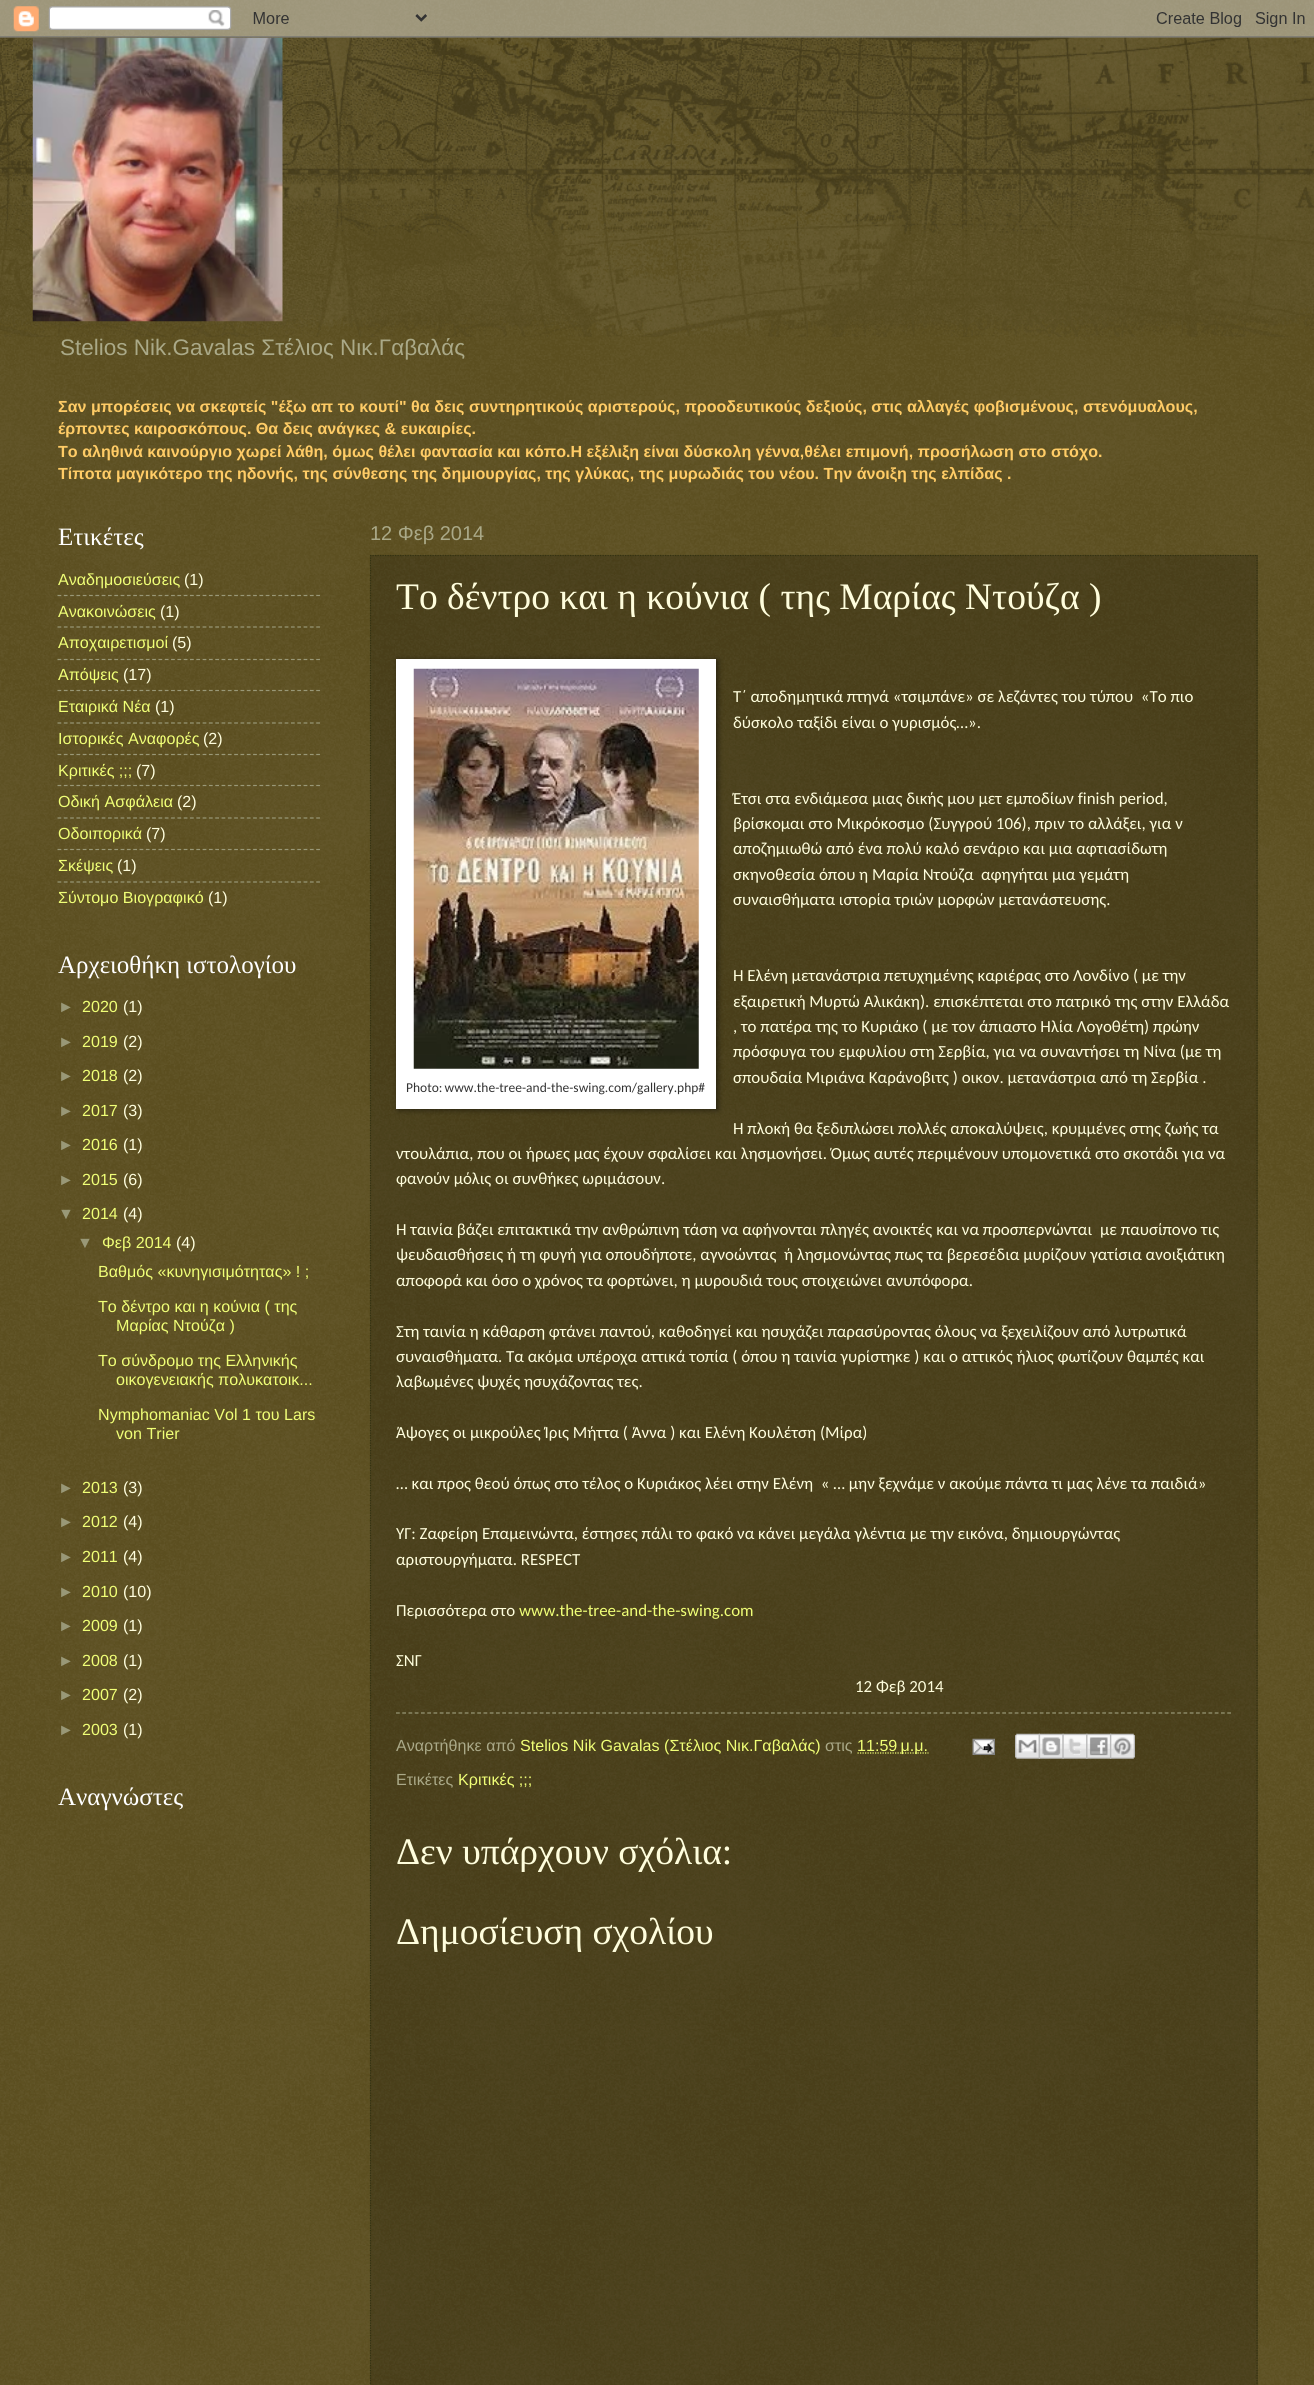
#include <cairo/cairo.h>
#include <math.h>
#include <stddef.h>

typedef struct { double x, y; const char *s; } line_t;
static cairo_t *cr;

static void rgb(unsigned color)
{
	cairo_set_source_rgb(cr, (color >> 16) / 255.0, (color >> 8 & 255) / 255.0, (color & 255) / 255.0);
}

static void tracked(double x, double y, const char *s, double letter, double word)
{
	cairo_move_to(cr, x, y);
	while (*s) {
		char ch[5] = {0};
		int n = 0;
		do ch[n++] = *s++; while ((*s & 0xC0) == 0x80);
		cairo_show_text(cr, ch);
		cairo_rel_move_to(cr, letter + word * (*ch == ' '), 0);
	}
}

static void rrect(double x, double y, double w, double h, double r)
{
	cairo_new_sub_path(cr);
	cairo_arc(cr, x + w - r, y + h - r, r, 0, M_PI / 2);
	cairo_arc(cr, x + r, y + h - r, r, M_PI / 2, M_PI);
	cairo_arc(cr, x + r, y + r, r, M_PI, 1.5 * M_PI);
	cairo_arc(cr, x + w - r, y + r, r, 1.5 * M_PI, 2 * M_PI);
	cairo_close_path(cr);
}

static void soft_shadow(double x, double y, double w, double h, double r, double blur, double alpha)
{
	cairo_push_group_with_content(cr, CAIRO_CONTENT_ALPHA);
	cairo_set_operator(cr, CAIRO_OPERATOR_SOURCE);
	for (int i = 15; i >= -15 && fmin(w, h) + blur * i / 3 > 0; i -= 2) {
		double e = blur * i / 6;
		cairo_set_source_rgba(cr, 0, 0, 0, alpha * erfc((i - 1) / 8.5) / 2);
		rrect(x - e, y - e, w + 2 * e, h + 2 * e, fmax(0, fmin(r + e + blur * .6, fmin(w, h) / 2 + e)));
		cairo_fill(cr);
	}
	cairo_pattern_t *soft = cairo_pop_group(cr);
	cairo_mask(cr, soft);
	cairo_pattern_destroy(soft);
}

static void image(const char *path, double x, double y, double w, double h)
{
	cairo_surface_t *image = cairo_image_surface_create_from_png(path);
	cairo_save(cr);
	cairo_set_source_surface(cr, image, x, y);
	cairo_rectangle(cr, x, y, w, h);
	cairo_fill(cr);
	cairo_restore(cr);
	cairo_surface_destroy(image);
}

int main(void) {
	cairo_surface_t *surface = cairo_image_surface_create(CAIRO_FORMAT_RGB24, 1314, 2385);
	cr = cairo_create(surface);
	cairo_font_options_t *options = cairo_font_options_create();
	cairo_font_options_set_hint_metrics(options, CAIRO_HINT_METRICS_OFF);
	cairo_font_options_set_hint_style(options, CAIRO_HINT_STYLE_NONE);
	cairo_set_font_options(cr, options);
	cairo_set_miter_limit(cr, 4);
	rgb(0x443500);
	cairo_paint(cr);
	image("img/1.png", 0, 0, 1314, 2385);
	image("img/3.png", 0, 37, 1314, 300);
	image("img/4.png", 32, 37, 251, 285);
	image("img/2.png", 0, 0, 1314, 38);
	cairo_new_path(cr);
	cairo_move_to(cr, 57.5, 595.5);
	cairo_line_to(cr, 320, 595.5);
	rgb(0x999877);
	cairo_set_line_width(cr, 1.2);
	cairo_set_dash(cr, (double[]){3.75, 2.56}, 2, 0);
	cairo_stroke(cr);
	cairo_new_path(cr);
	cairo_move_to(cr, 57.5, 627);
	cairo_line_to(cr, 320, 627);
	cairo_stroke(cr);
	cairo_new_path(cr);
	cairo_move_to(cr, 57.5, 659.5);
	cairo_line_to(cr, 320, 659.5);
	cairo_stroke(cr);
	cairo_new_path(cr);
	cairo_move_to(cr, 57.5, 690.5);
	cairo_line_to(cr, 320, 690.5);
	cairo_stroke(cr);
	cairo_new_path(cr);
	cairo_move_to(cr, 57.5, 723);
	cairo_line_to(cr, 320, 723);
	cairo_stroke(cr);
	cairo_new_path(cr);
	cairo_move_to(cr, 57.5, 754.5);
	cairo_line_to(cr, 320, 754.5);
	cairo_stroke(cr);
	cairo_new_path(cr);
	cairo_move_to(cr, 57.5, 785.5);
	cairo_line_to(cr, 320, 785.5);
	cairo_stroke(cr);
	cairo_new_path(cr);
	cairo_move_to(cr, 57.5, 818);
	cairo_line_to(cr, 320, 818);
	cairo_stroke(cr);
	cairo_new_path(cr);
	cairo_move_to(cr, 57.5, 849.5);
	cairo_line_to(cr, 320, 849.5);
	cairo_stroke(cr);
	cairo_new_path(cr);
	cairo_move_to(cr, 57.5, 882);
	cairo_line_to(cr, 320, 882);
	cairo_stroke(cr);
	cairo_set_source_rgba(cr, 0, 0, 0, 0.2);
	cairo_rectangle(cr, 370, 555, 888, 1830);
	cairo_fill(cr);
	cairo_new_path(cr);
	cairo_move_to(cr, 370, 555.5);
	cairo_line_to(cr, 1257.5, 555.5);
	rgb(0x333211);
	cairo_set_dash(cr, (double[]){1.25, 1.25}, 2, 0);
	cairo_stroke(cr);
	cairo_new_path(cr);
	cairo_move_to(cr, 1257, 555);
	cairo_line_to(cr, 1257, 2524);
	cairo_stroke(cr);
	cairo_new_path(cr);
	cairo_move_to(cr, 370.5, 555);
	cairo_line_to(cr, 370.5, 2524);
	cairo_stroke(cr);
	rgb(0x000000);
	soft_shadow(398, 660, 320, 450, 0, 3, 0.5);
	rgb(0xffffff);
	cairo_rectangle(cr, 396, 659, 320, 450);
	cairo_fill(cr);
	image("img/5.png", 413, 668, 286, 401);
	cairo_new_path(cr);
	cairo_move_to(cr, 396, 1713);
	cairo_line_to(cr, 1231, 1713);
	rgb(0x999877);
	cairo_set_dash(cr, (double[]){3.75, 2.5}, 2, 0);
	cairo_stroke(cr);
	cairo_new_path(cr);
	cairo_move_to(cr, 857.5, 1753);
	cairo_line_to(cr, 928.5, 1753);
	rgb(0xf0ff77);
	cairo_set_dash(cr, (double[]){1.25, 1.25}, 2, 0);
	cairo_stroke(cr);
	image("img/6.png", 972, 1738, 23, 17);
	image("img/7.png", 1015, 1733, 25, 26);
	image("img/8.png", 1038, 1733, 26, 26);
	image("img/9.png", 1062, 1733, 26, 26);
	image("img/10.png", 1086, 1733, 26, 26);
	image("img/11.png", 1110, 1733, 25, 26);
	cairo_select_font_face(cr, "Liberation Sans", CAIRO_FONT_SLANT_NORMAL, CAIRO_FONT_WEIGHT_NORMAL);
	cairo_set_font_size(cr, 22.5);
	rgb(0xaaa988);
	cairo_move_to(cr, 60, 355);
	cairo_show_text(cr, "Stelios Nik.Gavalas Στέλιος Νικ.Γαβαλάς");
	cairo_select_font_face(cr, "Liberation Sans", CAIRO_FONT_SLANT_NORMAL, CAIRO_FONT_WEIGHT_BOLD);
	cairo_set_font_size(cr, 16.1);
	rgb(0xffcc66);
	{
		static const line_t items[] = {
			{58, 412, "Σαν μπορέσεις να σκεφτείς \"έξω απ το κουτί\" θα δεις συντηρητικούς αριστερούς, προοδευτικούς δεξιούς, στις αλλαγές φοβισμένους, στενόμυαλους,"},
			{58, 434, "έρποντες καιροσκόπους. Θα δεις ανάγκες & ευκαιρίες."},
			{58, 457, "Το αληθινά καινούργιο χωρεί λάθη, όμως θέλει φαντασία και κόπο.H εξέλιξη είναι δύσκολη γέννα,θέλει επιμονή, προσήλωση στο στόχο."},
			{58, 479, "Τίποτα μαγικότερο της ηδονής, της σύνθεσης της δημιουργίας, της γλύκας, της μυρωδιάς του νέου. Την άνοιξη της ελπίδας ."},
		};
		for (size_t i = 0; i < sizeof items / sizeof *items; i++) {
			cairo_move_to(cr, items[i].x, items[i].y);
			cairo_show_text(cr, items[i].s);
		}
	}
	cairo_select_font_face(cr, "Liberation Serif", CAIRO_FONT_SLANT_NORMAL, CAIRO_FONT_WEIGHT_NORMAL);
	cairo_set_font_size(cr, 25);
	rgb(0xffffff);
	cairo_move_to(cr, 58, 545);
	cairo_show_text(cr, "Ετικέτες");
	cairo_select_font_face(cr, "Liberation Sans", CAIRO_FONT_SLANT_NORMAL, CAIRO_FONT_WEIGHT_NORMAL);
	cairo_set_font_size(cr, 16.1);
	rgb(0xf0ff77);
	cairo_move_to(cr, 58, 585);
	cairo_show_text(cr, "Αναδημοσιεύσεις");
	rgb(0xfffedd);
	cairo_move_to(cr, 184, 585);
	cairo_show_text(cr, "(1)");
	rgb(0xf0ff77);
	cairo_move_to(cr, 58, 617);
	cairo_show_text(cr, "Ανακοινώσεις");
	rgb(0xfffedd);
	cairo_move_to(cr, 160, 617);
	cairo_show_text(cr, "(1)");
	rgb(0xf0ff77);
	cairo_move_to(cr, 58, 648);
	cairo_show_text(cr, "Αποχαιρετισμοί");
	rgb(0xfffedd);
	cairo_move_to(cr, 172, 648);
	cairo_show_text(cr, "(5)");
	rgb(0xf0ff77);
	cairo_move_to(cr, 58, 680);
	cairo_show_text(cr, "Απόψεις");
	rgb(0xfffedd);
	cairo_move_to(cr, 123, 680);
	cairo_show_text(cr, "(17)");
	rgb(0xf0ff77);
	cairo_move_to(cr, 58, 712);
	cairo_show_text(cr, "Εταιρικά Νέα");
	rgb(0xfffedd);
	cairo_move_to(cr, 155, 712);
	cairo_show_text(cr, "(1)");
	rgb(0xf0ff77);
	cairo_move_to(cr, 58, 744);
	cairo_show_text(cr, "Ιστορικές Αναφορές");
	rgb(0xfffedd);
	cairo_move_to(cr, 203, 744);
	cairo_show_text(cr, "(2)");
	rgb(0xf0ff77);
	cairo_move_to(cr, 58, 776);
	cairo_show_text(cr, "Κριτικές ;;;");
	rgb(0xfffedd);
	cairo_move_to(cr, 136, 776);
	cairo_show_text(cr, "(7)");
	rgb(0xf0ff77);
	cairo_move_to(cr, 58, 807);
	cairo_show_text(cr, "Οδική Ασφάλεια");
	rgb(0xfffedd);
	cairo_move_to(cr, 177, 807);
	cairo_show_text(cr, "(2)");
	rgb(0xf0ff77);
	cairo_move_to(cr, 58, 839);
	cairo_show_text(cr, "Οδοιπορικά");
	rgb(0xfffedd);
	cairo_move_to(cr, 146, 839);
	cairo_show_text(cr, "(7)");
	rgb(0xf0ff77);
	cairo_move_to(cr, 58, 871);
	cairo_show_text(cr, "Σκέψεις");
	rgb(0xfffedd);
	cairo_move_to(cr, 117, 871);
	cairo_show_text(cr, "(1)");
	rgb(0xf0ff77);
	cairo_move_to(cr, 58, 903);
	cairo_show_text(cr, "Σύντομο Βιογραφικό");
	rgb(0xfffedd);
	cairo_move_to(cr, 208, 903);
	cairo_show_text(cr, "(1)");
	cairo_select_font_face(cr, "Liberation Serif", CAIRO_FONT_SLANT_NORMAL, CAIRO_FONT_WEIGHT_NORMAL);
	cairo_set_font_size(cr, 25);
	rgb(0xffffff);
	cairo_move_to(cr, 58, 973);
	cairo_show_text(cr, "Αρχειοθήκη ιστολογίου");
	cairo_select_font_face(cr, "Liberation Sans", CAIRO_FONT_SLANT_NORMAL, CAIRO_FONT_WEIGHT_NORMAL);
	cairo_set_font_size(cr, 16.1);
	rgb(0x999877);
	cairo_move_to(cr, 58, 1012);
	cairo_show_text(cr, "►");
	rgb(0xf0ff77);
	cairo_move_to(cr, 82, 1012);
	cairo_show_text(cr, "2020");
	rgb(0xfffedd);
	cairo_move_to(cr, 123, 1012);
	cairo_show_text(cr, "(1)");
	rgb(0x999877);
	cairo_move_to(cr, 58, 1047);
	cairo_show_text(cr, "►");
	rgb(0xf0ff77);
	cairo_move_to(cr, 82, 1047);
	cairo_show_text(cr, "2019");
	rgb(0xfffedd);
	cairo_move_to(cr, 123, 1047);
	cairo_show_text(cr, "(2)");
	rgb(0x999877);
	cairo_move_to(cr, 58, 1081);
	cairo_show_text(cr, "►");
	rgb(0xf0ff77);
	cairo_move_to(cr, 82, 1081);
	cairo_show_text(cr, "2018");
	rgb(0xfffedd);
	cairo_move_to(cr, 123, 1081);
	cairo_show_text(cr, "(2)");
	rgb(0x999877);
	cairo_move_to(cr, 58, 1116);
	cairo_show_text(cr, "►");
	rgb(0xf0ff77);
	cairo_move_to(cr, 82, 1116);
	cairo_show_text(cr, "2017");
	rgb(0xfffedd);
	cairo_move_to(cr, 123, 1116);
	cairo_show_text(cr, "(3)");
	rgb(0x999877);
	cairo_move_to(cr, 58, 1150);
	cairo_show_text(cr, "►");
	rgb(0xf0ff77);
	cairo_move_to(cr, 82, 1150);
	cairo_show_text(cr, "2016");
	rgb(0xfffedd);
	cairo_move_to(cr, 123, 1150);
	cairo_show_text(cr, "(1)");
	rgb(0x999877);
	cairo_move_to(cr, 58, 1185);
	cairo_show_text(cr, "►");
	rgb(0xf0ff77);
	cairo_move_to(cr, 82, 1185);
	cairo_show_text(cr, "2015");
	rgb(0xfffedd);
	cairo_move_to(cr, 123, 1185);
	cairo_show_text(cr, "(6)");
	rgb(0x999877);
	cairo_move_to(cr, 58, 1219);
	cairo_show_text(cr, "▼");
	rgb(0xf0ff77);
	cairo_move_to(cr, 82, 1219);
	cairo_show_text(cr, "2014");
	rgb(0xfffedd);
	cairo_move_to(cr, 123, 1219);
	cairo_show_text(cr, "(4)");
	rgb(0x999877);
	cairo_move_to(cr, 77, 1248);
	cairo_show_text(cr, "▼");
	rgb(0xf0ff77);
	cairo_move_to(cr, 102, 1248);
	cairo_show_text(cr, "Φεβ 2014");
	rgb(0xfffedd);
	cairo_move_to(cr, 176, 1248);
	cairo_show_text(cr, "(4)");
	rgb(0xf0ff77);
	{
		static const line_t items[] = {
			{98, 1277, "Βαθμός «κυνηγισιμότητας» ! ;"},
			{98, 1312, "Το δέντρο και η κούνια ( της"},
			{116, 1331, "Μαρίας Ντούζα )"},
			{98, 1366, "Το σύνδρομο της Ελληνικής"},
			{116, 1385, "οικογενειακής πολυκατοικ..."},
			{98, 1420, "Nymphomaniac Vol 1 του Lars"},
			{116, 1439, "von Trier"},
		};
		for (size_t i = 0; i < sizeof items / sizeof *items; i++) {
			cairo_move_to(cr, items[i].x, items[i].y);
			cairo_show_text(cr, items[i].s);
		}
	}
	rgb(0x999877);
	cairo_move_to(cr, 58, 1493);
	cairo_show_text(cr, "►");
	rgb(0xf0ff77);
	cairo_move_to(cr, 82, 1493);
	cairo_show_text(cr, "2013");
	rgb(0xfffedd);
	cairo_move_to(cr, 123, 1493);
	cairo_show_text(cr, "(3)");
	rgb(0x999877);
	cairo_move_to(cr, 58, 1527);
	cairo_show_text(cr, "►");
	rgb(0xf0ff77);
	cairo_move_to(cr, 82, 1527);
	cairo_show_text(cr, "2012");
	rgb(0xfffedd);
	cairo_move_to(cr, 123, 1527);
	cairo_show_text(cr, "(4)");
	rgb(0x999877);
	cairo_move_to(cr, 58, 1562);
	cairo_show_text(cr, "►");
	rgb(0xf0ff77);
	cairo_move_to(cr, 82, 1562);
	cairo_show_text(cr, "2011");
	rgb(0xfffedd);
	cairo_move_to(cr, 123, 1562);
	cairo_show_text(cr, "(4)");
	rgb(0x999877);
	cairo_move_to(cr, 58, 1597);
	cairo_show_text(cr, "►");
	rgb(0xf0ff77);
	cairo_move_to(cr, 82, 1597);
	cairo_show_text(cr, "2010");
	rgb(0xfffedd);
	cairo_move_to(cr, 123, 1597);
	cairo_show_text(cr, "(10)");
	rgb(0x999877);
	cairo_move_to(cr, 58, 1631);
	cairo_show_text(cr, "►");
	rgb(0xf0ff77);
	cairo_move_to(cr, 82, 1631);
	cairo_show_text(cr, "2009");
	rgb(0xfffedd);
	cairo_move_to(cr, 123, 1631);
	cairo_show_text(cr, "(1)");
	rgb(0x999877);
	cairo_move_to(cr, 58, 1666);
	cairo_show_text(cr, "►");
	rgb(0xf0ff77);
	cairo_move_to(cr, 82, 1666);
	cairo_show_text(cr, "2008");
	rgb(0xfffedd);
	cairo_move_to(cr, 123, 1666);
	cairo_show_text(cr, "(1)");
	rgb(0x999877);
	cairo_move_to(cr, 58, 1700);
	cairo_show_text(cr, "►");
	rgb(0xf0ff77);
	cairo_move_to(cr, 82, 1700);
	cairo_show_text(cr, "2007");
	rgb(0xfffedd);
	cairo_move_to(cr, 123, 1700);
	cairo_show_text(cr, "(2)");
	rgb(0x999877);
	cairo_move_to(cr, 58, 1735);
	cairo_show_text(cr, "►");
	rgb(0xf0ff77);
	cairo_move_to(cr, 82, 1735);
	cairo_show_text(cr, "2003");
	rgb(0xfffedd);
	cairo_move_to(cr, 123, 1735);
	cairo_show_text(cr, "(1)");
	cairo_select_font_face(cr, "Liberation Serif", CAIRO_FONT_SLANT_NORMAL, CAIRO_FONT_WEIGHT_NORMAL);
	cairo_set_font_size(cr, 25);
	rgb(0xffffff);
	cairo_move_to(cr, 58, 1805);
	cairo_show_text(cr, "Αναγνώστες");
	cairo_select_font_face(cr, "Liberation Sans", CAIRO_FONT_SLANT_NORMAL, CAIRO_FONT_WEIGHT_NORMAL);
	cairo_set_font_size(cr, 20);
	rgb(0xaaa988);
	cairo_move_to(cr, 370, 540);
	cairo_show_text(cr, "12 Φεβ 2014");
	cairo_select_font_face(cr, "Liberation Serif", CAIRO_FONT_SLANT_NORMAL, CAIRO_FONT_WEIGHT_NORMAL);
	cairo_set_font_size(cr, 37.5);
	rgb(0xfffedd);
	cairo_move_to(cr, 396, 609);
	cairo_show_text(cr, "Το δέντρο και η κούνια ( της Μαρίας Ντούζα )");
	cairo_select_font_face(cr, "Carlito", CAIRO_FONT_SLANT_NORMAL, CAIRO_FONT_WEIGHT_NORMAL);
	cairo_set_font_size(cr, 16.9);
	{
		static const line_t items[] = {
			{733, 702, "Τ΄ αποδημητικά πτηνά «τσιμπάνε» σε λεζάντες του τύπου  «Το πιο"},
			{733, 728, "δύσκολο ταξίδι είναι ο γυρισμός…»."},
			{733, 804, "Έτσι στα ενδιάμεσα μιας δικής μου μετ εμποδίων finish period,"},
			{733, 829, "βρίσκομαι στο Μικρόκοσμο (Συγγρού 106), πριν το αλλάξει, για ν"},
			{733, 854, "αποζημιωθώ από ένα πολύ καλό σενάριο και μια αφτιασίδωτη"},
			{733, 880, "σκηνοθεσία όπου η Μαρία Ντούζα"},
			{981, 880, "αφηγήται μια γεμάτη"},
			{733, 905, "συναισθήματα ιστορία τριών μορφών μετανάστευσης."},
			{733, 981, "Η Ελένη μετανάστρια πετυχημένης καριέρας στο Λονδίνο ( με την"},
			{733, 1007, "εξαιρετική Μυρτώ Αλικάκη). επισκέπτεται στο πατρικό της στην Ελλάδα"},
			{733, 1032, ", το πατέρα της το Κυριάκο ( με τον άπιαστο Ηλία Λογοθέτη) πρώην"},
			{733, 1057, "πρόσφυγα του εμφυλίου στη Σερβία, για να συναντήσει τη Νίνα (με τη"},
			{733, 1083, "σπουδαία Μιριάνα Καράνοβιτς ) οικον. μετανάστρια από τη Σερβία ."},
		};
		for (size_t i = 0; i < sizeof items / sizeof *items; i++) {
			cairo_move_to(cr, items[i].x, items[i].y);
			cairo_show_text(cr, items[i].s);
		}
	}
	cairo_set_font_size(cr, 13.5);
	rgb(0x333333);
	tracked(406, 1092, "Photo: www.the-tree-and-the-swing.com/gallery.php#", 0, -1);
	cairo_set_font_size(cr, 16.9);
	rgb(0xfffedd);
	{
		static const line_t items[] = {
			{733, 1134, "Η πλοκή θα ξεδιπλώσει πολλές αποκαλύψεις, κρυμμένες στης ζωής τα"},
			{396, 1159, "ντουλάπια, που οι ήρωες μας έχουν σφαλίσει και λησμονήσει. Όμως αυτές περιμένουν υπομονετικά στο σκοτάδι για να"},
			{396, 1184, "φανούν μόλις οι συνθήκες ωριμάσουν."},
			{396, 1235, "Η ταινία βάζει επιτακτικά την ανθρώπινη τάση να αφήνονται πληγές ανοικτές και να προσπερνώνται"},
			{1100, 1235, "με παυσίπονο τις"},
			{396, 1260, "ψευδαισθήσεις ή τη φυγή για οπουδήποτε, αγνοώντας"},
			{784, 1260, "ή λησμονώντας πως τα βερεσέδια μυρίζουν γατίσια ανοιξιάτικη"},
			{396, 1286, "αποφορά και όσο ο χρόνος τα φορτώνει, η μυρουδιά τους στοιχειώνει ανυπόφορα."},
			{396, 1337, "Στη ταινία η κάθαρση φτάνει παντού, καθοδηγεί και ησυχάζει παρασύροντας όλους να ξεχειλίζουν από λυτρωτικά"},
			{396, 1362, "συναισθήματα. Τα ακόμα υπέροχα αττικά τοπία ( όπου η ταινία γυρίστηκε ) και ο αττικός ήλιος φωτίζουν θαμπές και"},
			{396, 1387, "λαβωμένες ψυχές ησυχάζοντας τες."},
			{396, 1438, "Άψογες οι μικρούλες Ίρις Μήττα ( Άννα ) και Ελένη Κουλέτση (Μίρα)"},
			{396, 1489, "… και προς θεού όπως στο τέλος ο Κυριάκος λέει στην Ελένη  « … μην ξεχνάμε ν ακούμε πάντα τι μας λένε τα παιδιά»"},
			{396, 1539, "ΥΓ: Ζαφείρη Επαμεινώντα, έστησες πάλι το φακό να κάνει μεγάλα γλέντια με την εικόνα, δημιουργώντας"},
			{396, 1565, "αριστουργήματα. RESPECT"},
			{396, 1616, "Περισσότερα στο"},
		};
		for (size_t i = 0; i < sizeof items / sizeof *items; i++) {
			cairo_move_to(cr, items[i].x, items[i].y);
			cairo_show_text(cr, items[i].s);
		}
	}
	rgb(0xf0ff77);
	cairo_move_to(cr, 519, 1616);
	cairo_show_text(cr, "www.the-tree-and-the-swing.com");
	rgb(0xfffedd);
	cairo_move_to(cr, 396, 1666);
	cairo_show_text(cr, "ΣΝΓ");
	cairo_move_to(cr, 855, 1692);
	cairo_show_text(cr, "12 Φεβ 2014");
	cairo_select_font_face(cr, "Liberation Sans", CAIRO_FONT_SLANT_NORMAL, CAIRO_FONT_WEIGHT_NORMAL);
	cairo_set_font_size(cr, 16.1);
	rgb(0xaaa988);
	cairo_move_to(cr, 396, 1751);
	cairo_show_text(cr, "Αναρτήθηκε από");
	rgb(0xf0ff77);
	cairo_move_to(cr, 520, 1751);
	cairo_show_text(cr, "Stelios Nik Gavalas (Στέλιος Νικ.Γαβαλάς)");
	rgb(0xaaa988);
	cairo_move_to(cr, 825, 1751);
	cairo_show_text(cr, "στις");
	rgb(0xf0ff77);
	cairo_move_to(cr, 857, 1751);
	cairo_show_text(cr, "11:59 μ.μ.");
	rgb(0xaaa988);
	cairo_move_to(cr, 396, 1785);
	cairo_show_text(cr, "Ετικέτες");
	rgb(0xf0ff77);
	cairo_move_to(cr, 458, 1785);
	cairo_show_text(cr, "Κριτικές ;;;");
	cairo_select_font_face(cr, "Liberation Serif", CAIRO_FONT_SLANT_NORMAL, CAIRO_FONT_WEIGHT_NORMAL);
	cairo_set_font_size(cr, 37.5);
	rgb(0xfffedd);
	cairo_move_to(cr, 396, 1864);
	cairo_show_text(cr, "Δεν υπάρχουν σχόλια:");
	cairo_move_to(cr, 396, 1944);
	cairo_show_text(cr, "Δημοσίευση σχολίου");
	cairo_surface_write_to_png(surface, "page.png");
	cairo_font_options_destroy(options);
	cairo_destroy(cr);
	cairo_surface_destroy(surface);
	return 0;
}
